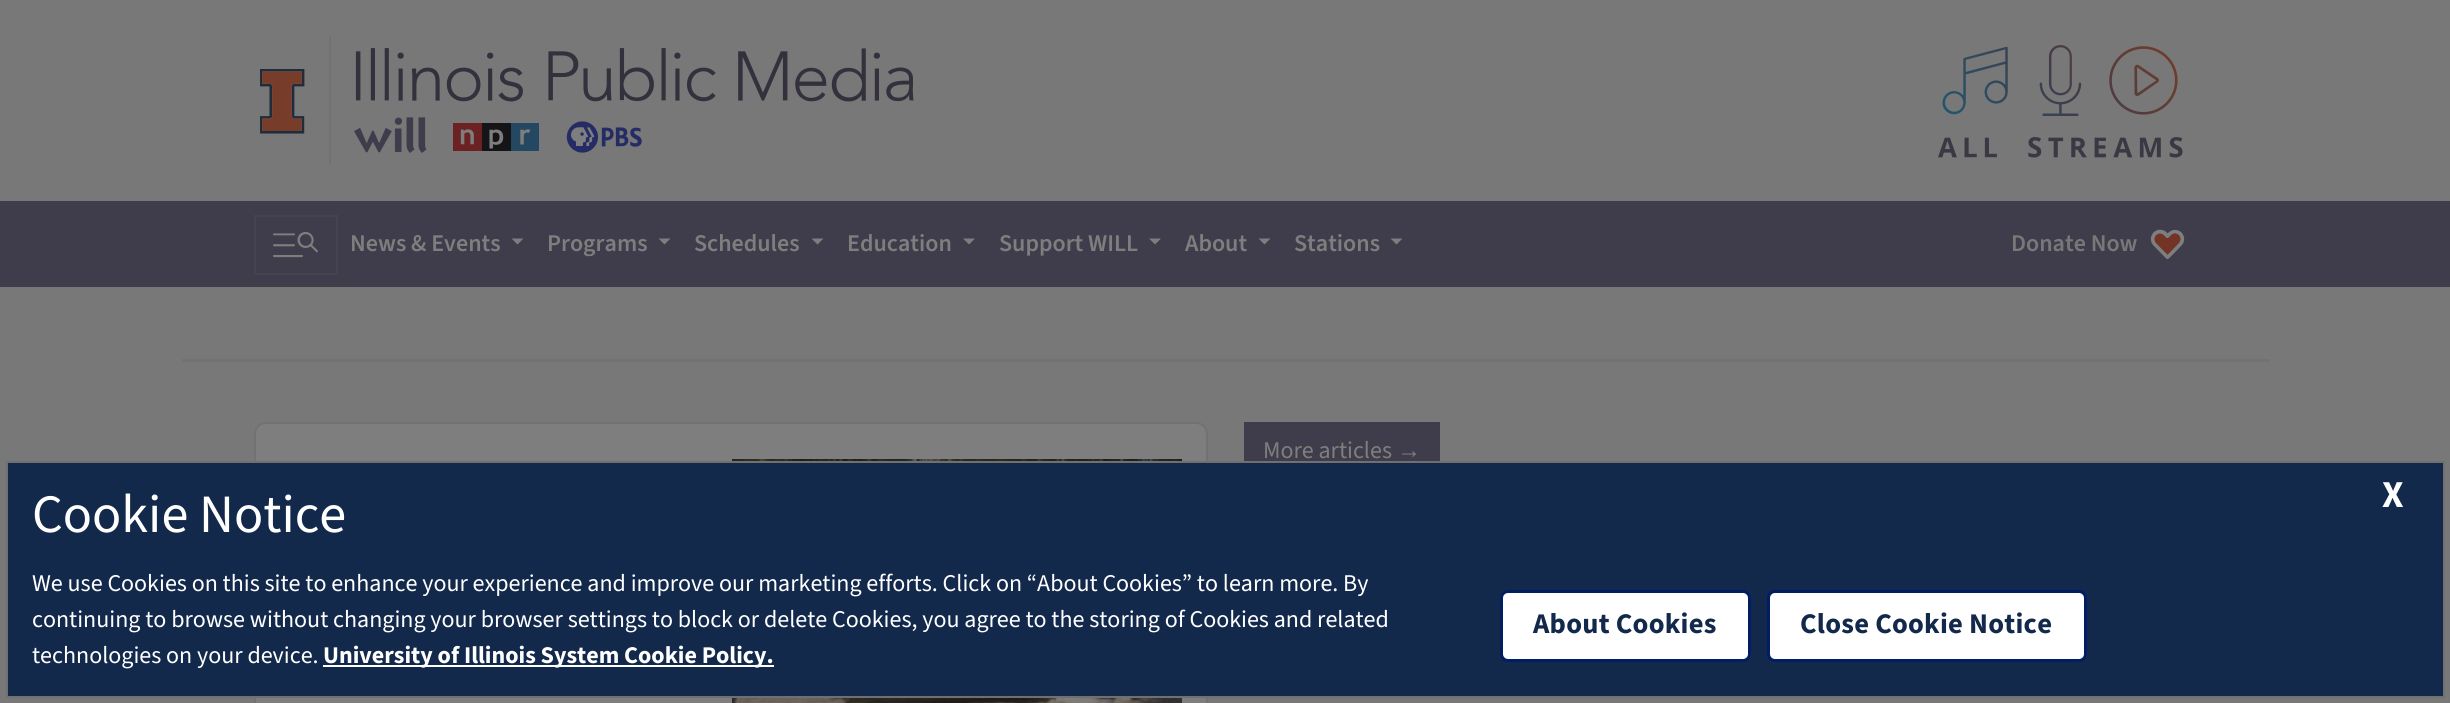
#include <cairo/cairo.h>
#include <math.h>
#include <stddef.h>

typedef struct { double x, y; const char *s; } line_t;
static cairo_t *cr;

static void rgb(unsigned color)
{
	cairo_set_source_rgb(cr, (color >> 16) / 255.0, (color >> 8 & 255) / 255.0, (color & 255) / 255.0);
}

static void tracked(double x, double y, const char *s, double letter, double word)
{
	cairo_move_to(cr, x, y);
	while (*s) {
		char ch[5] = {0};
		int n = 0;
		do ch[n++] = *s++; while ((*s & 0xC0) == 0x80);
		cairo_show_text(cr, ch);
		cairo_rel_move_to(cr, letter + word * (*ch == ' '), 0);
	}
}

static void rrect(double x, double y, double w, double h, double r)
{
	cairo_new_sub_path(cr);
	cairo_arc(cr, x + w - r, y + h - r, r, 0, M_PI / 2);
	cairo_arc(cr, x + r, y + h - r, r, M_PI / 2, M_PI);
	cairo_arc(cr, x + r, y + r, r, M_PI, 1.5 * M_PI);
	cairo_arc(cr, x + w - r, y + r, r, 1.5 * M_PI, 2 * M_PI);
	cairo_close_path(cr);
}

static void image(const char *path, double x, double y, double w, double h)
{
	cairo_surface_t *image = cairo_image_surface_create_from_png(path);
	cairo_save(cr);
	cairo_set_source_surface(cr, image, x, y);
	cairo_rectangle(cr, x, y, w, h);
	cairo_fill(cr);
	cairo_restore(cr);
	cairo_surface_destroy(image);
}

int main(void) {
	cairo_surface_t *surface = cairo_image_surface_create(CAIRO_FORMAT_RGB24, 2450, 703);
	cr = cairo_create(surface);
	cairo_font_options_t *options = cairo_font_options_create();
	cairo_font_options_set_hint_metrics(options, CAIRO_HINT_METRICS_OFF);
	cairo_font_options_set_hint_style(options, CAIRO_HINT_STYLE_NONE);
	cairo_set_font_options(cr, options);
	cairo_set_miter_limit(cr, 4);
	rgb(0x787878);
	cairo_paint(cr);
	image("img/1.png", 260, 69, 45, 65);
	rgb(0x707274);
	cairo_rectangle(cr, 329, 36, 2, 129);
	cairo_fill(cr);
	image("img/2.png", 354, 48, 560, 105);
	image("img/3.png", 1938, 45, 245, 113);
	rgb(0x3f3c4b);
	cairo_rectangle(cr, 0, 201, 2450, 86);
	cairo_fill(cr);
	cairo_rectangle(cr, 255, 216, 82, 58);
	rgb(0x464250);
	cairo_stroke(cr);
	image("img/4.png", 273, 231, 45, 27);
	rgb(0x7e7e7e);
	cairo_new_path(cr);
	cairo_move_to(cr, 511.5, 238.5);
	cairo_line_to(cr, 523.5, 238.5);
	cairo_line_to(cr, 517.5, 244.5);
	cairo_close_path(cr);
	cairo_fill(cr);
	cairo_new_path(cr);
	cairo_move_to(cr, 658.5, 238.5);
	cairo_line_to(cr, 670.5, 238.5);
	cairo_line_to(cr, 664.5, 244.5);
	cairo_close_path(cr);
	cairo_fill(cr);
	cairo_new_path(cr);
	cairo_move_to(cr, 811.5, 238.5);
	cairo_line_to(cr, 823.5, 238.5);
	cairo_line_to(cr, 817.5, 244.5);
	cairo_close_path(cr);
	cairo_fill(cr);
	cairo_new_path(cr);
	cairo_move_to(cr, 963, 238.5);
	cairo_line_to(cr, 975, 238.5);
	cairo_line_to(cr, 969, 244.5);
	cairo_close_path(cr);
	cairo_fill(cr);
	cairo_new_path(cr);
	cairo_move_to(cr, 1149, 238.5);
	cairo_line_to(cr, 1161, 238.5);
	cairo_line_to(cr, 1155, 244.5);
	cairo_close_path(cr);
	cairo_fill(cr);
	cairo_new_path(cr);
	cairo_move_to(cr, 1258.5, 238.5);
	cairo_line_to(cr, 1270.5, 238.5);
	cairo_line_to(cr, 1264.5, 244.5);
	cairo_close_path(cr);
	cairo_fill(cr);
	cairo_new_path(cr);
	cairo_move_to(cr, 1390.5, 238.5);
	cairo_line_to(cr, 1402.5, 238.5);
	cairo_line_to(cr, 1396.5, 244.5);
	cairo_close_path(cr);
	cairo_fill(cr);
	image("img/5.png", 2150, 229, 35, 30);
	rgb(0x707274);
	cairo_rectangle(cr, 182, 359, 2088, 3);
	cairo_fill(cr);
	rgb(0x7e7e7e);
	rrect(255, 423, 952, 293, 11);
	cairo_fill_preserve(cr);
	rgb(0x707274);
	cairo_stroke(cr);
	image("img/6.png", 732, 459, 450, 244);
	rgb(0x3f3c4b);
	cairo_rectangle(cr, 1244, 422, 196, 39);
	cairo_fill(cr);
	rgb(0x13294b);
	cairo_rectangle(cr, 7, 462, 2437, 235);
	cairo_fill_preserve(cr);
	rgb(0x707070);
	cairo_stroke(cr);
	rgb(0xffffff);
	cairo_rectangle(cr, 323, 665, 451, 2);
	cairo_fill(cr);
	rrect(1501.5, 591.5, 248, 69, 6.5);
	cairo_fill_preserve(cr);
	rgb(0x001e62);
	cairo_set_line_width(cr, 3);
	cairo_stroke(cr);
	rgb(0xffffff);
	rrect(1768.5, 591.5, 317, 69, 6.5);
	cairo_fill_preserve(cr);
	rgb(0x001e62);
	cairo_stroke(cr);
	cairo_select_font_face(cr, "Source Sans 3 SemiBold", CAIRO_FONT_SLANT_NORMAL, CAIRO_FONT_WEIGHT_NORMAL);
	cairo_set_font_size(cr, 24);
	rgb(0x7e7e7e);
	{
		static const line_t items[] = {
			{350, 251, "News & Events"},
			{547, 251, "Programs"},
			{694, 251, "Schedules"},
			{847, 251, "Education"},
			{999, 251, "Support WILL"},
			{1185, 251, "About"},
			{1294, 251, "Stations"},
		};
		for (size_t i = 0; i < sizeof items / sizeof *items; i++) {
			cairo_move_to(cr, items[i].x, items[i].y);
			cairo_show_text(cr, items[i].s);
		}
	}
	rgb(0x787878);
	cairo_move_to(cr, 2011, 251);
	cairo_show_text(cr, "Donate Now");
	cairo_select_font_face(cr, "Source Sans 3", CAIRO_FONT_SLANT_NORMAL, CAIRO_FONT_WEIGHT_NORMAL);
	rgb(0x7e7e7e);
	cairo_move_to(cr, 1263, 458);
	cairo_show_text(cr, "More articles");
	cairo_select_font_face(cr, "Liberation Sans", CAIRO_FONT_SLANT_NORMAL, CAIRO_FONT_WEIGHT_NORMAL);
	cairo_move_to(cr, 1397, 458);
	cairo_show_text(cr, "→");
	cairo_select_font_face(cr, "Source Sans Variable", CAIRO_FONT_SLANT_NORMAL, CAIRO_FONT_WEIGHT_NORMAL);
	cairo_set_font_size(cr, 54);
	rgb(0xffffff);
	cairo_move_to(cr, 32, 532);
	cairo_show_text(cr, "Cookie Notice");
	cairo_select_font_face(cr, "Source Sans 3", CAIRO_FONT_SLANT_NORMAL, CAIRO_FONT_WEIGHT_BOLD);
	cairo_set_font_size(cr, 38);
	cairo_move_to(cr, 2382, 507);
	cairo_show_text(cr, "X");
	cairo_select_font_face(cr, "Source Sans Variable", CAIRO_FONT_SLANT_NORMAL, CAIRO_FONT_WEIGHT_NORMAL);
	cairo_set_font_size(cr, 24);
	{
		static const line_t items[] = {
			{32, 591, "We use Cookies on this site to enhance your experience and improve our marketing efforts. Click on “About Cookies” to learn more. By"},
			{32, 627, "continuing to browse without changing your browser settings to block or delete Cookies, you agree to the storing of Cookies and related"},
			{32, 663, "technologies on your device."},
		};
		for (size_t i = 0; i < sizeof items / sizeof *items; i++) {
			cairo_move_to(cr, items[i].x, items[i].y);
			cairo_show_text(cr, items[i].s);
		}
	}
	cairo_select_font_face(cr, "Source Sans Variable", CAIRO_FONT_SLANT_NORMAL, CAIRO_FONT_WEIGHT_BOLD);
	cairo_move_to(cr, 323, 663);
	cairo_show_text(cr, "University of Illinois System Cookie Policy.");
	cairo_set_font_size(cr, 28.5);
	rgb(0x13294b);
	tracked(1533, 633, "About Cookies", 0.25, 0);
	tracked(1800, 633, "Close Cookie Notice", 0.25, 0);
	cairo_surface_write_to_png(surface, "page.png");
	cairo_font_options_destroy(options);
	cairo_destroy(cr);
	cairo_surface_destroy(surface);
	return 0;
}
